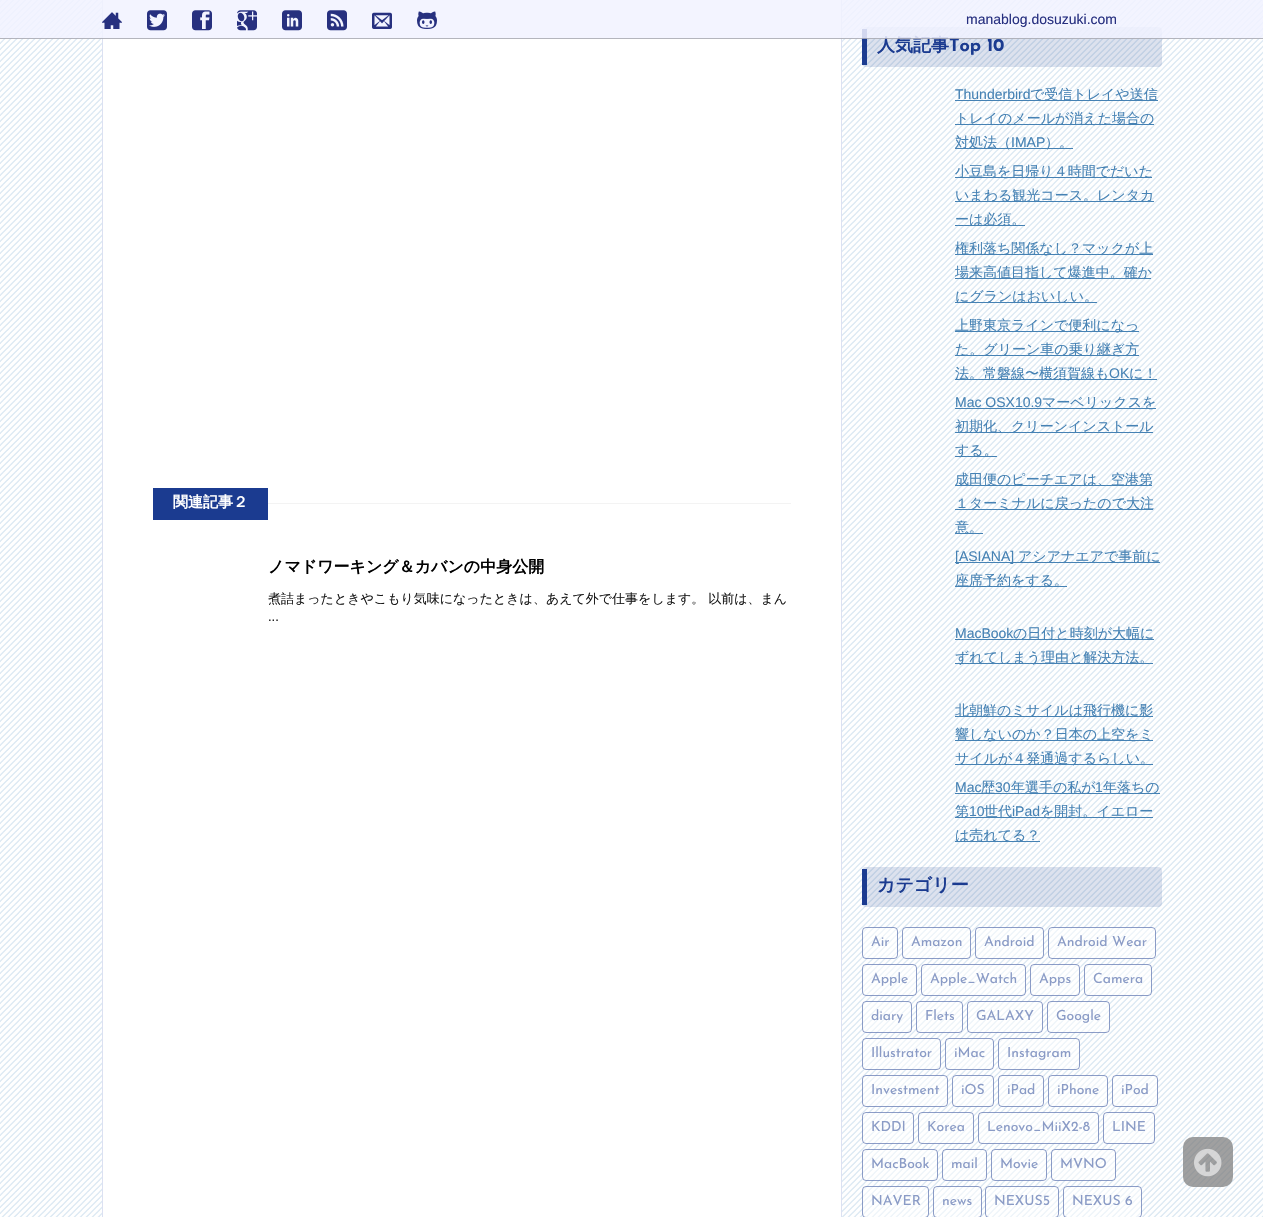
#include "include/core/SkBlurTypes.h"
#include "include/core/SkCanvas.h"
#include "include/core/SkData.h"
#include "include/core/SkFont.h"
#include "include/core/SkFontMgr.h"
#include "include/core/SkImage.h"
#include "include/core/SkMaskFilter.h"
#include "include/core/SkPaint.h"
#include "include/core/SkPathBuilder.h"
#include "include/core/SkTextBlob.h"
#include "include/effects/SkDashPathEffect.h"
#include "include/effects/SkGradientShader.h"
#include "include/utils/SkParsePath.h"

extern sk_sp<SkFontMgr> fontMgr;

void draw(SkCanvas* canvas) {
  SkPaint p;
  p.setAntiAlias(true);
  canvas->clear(SK_ColorWHITE);
  canvas->drawImageRect(SkImages::DeferredFromEncodedData(SkData::MakeFromFileName("images/1.png")), SkRect::MakeLTRB(0, 0, 1263, 1217), SkSamplingOptions());
  p.setColor(SK_ColorWHITE);
  canvas->drawRect(SkRect::MakeLTRB(102.5f, -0.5f, 841.5f, 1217.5f), p);
  p.setStyle(SkPaint::kStroke_Style);
  p.setStrokeWidth(1);
  p.setColor(SkColorSetRGB(220, 225, 242));
  canvas->drawRect(SkRect::MakeLTRB(102.5f, -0.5f, 841.5f, 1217.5f), p);
  p.setStyle(SkPaint::kFill_Style);
  p.setColor(SkColorSetRGB(243, 243, 243));
  canvas->drawRect(SkRect::MakeLTRB(268, 503, 791, 504), p);
  p.setColor(SkColorSetRGB(27, 59, 144));
  canvas->drawRect(SkRect::MakeLTRB(153, 488, 268, 520), p);
  p.setColor(SkColorSetARGB(38, 27, 59, 144));
  canvas->drawRoundRect(SkRect::MakeLTRB(862, 27, 1162, 67), 4, 4, p);
  p.setColor(SkColorSetRGB(27, 59, 144));
  canvas->drawRect(SkRect::MakeLTRB(862, 29, 867, 65), p);
  p.setColor(SkColorSetRGB(70, 130, 180));
  canvas->drawRect(SkRect::MakeLTRB(955, 100, 1158, 101), p);
  canvas->drawRect(SkRect::MakeLTRB(955, 124, 1154, 125), p);
  canvas->drawRect(SkRect::MakeLTRB(955, 148, 1073, 149), p);
  canvas->drawRect(SkRect::MakeLTRB(955, 177, 1152, 178), p);
  canvas->drawRect(SkRect::MakeLTRB(955, 201, 1154, 202), p);
  canvas->drawRect(SkRect::MakeLTRB(955, 225, 1025, 226), p);
  canvas->drawRect(SkRect::MakeLTRB(955, 254, 1153, 255), p);
  canvas->drawRect(SkRect::MakeLTRB(955, 278, 1151, 279), p);
  canvas->drawRect(SkRect::MakeLTRB(955, 302, 1097, 303), p);
  canvas->drawRect(SkRect::MakeLTRB(955, 331, 1139, 332), p);
  canvas->drawRect(SkRect::MakeLTRB(955, 355, 1139, 356), p);
  canvas->drawRect(SkRect::MakeLTRB(955, 379, 1157, 380), p);
  canvas->drawRect(SkRect::MakeLTRB(955, 408, 1156, 409), p);
  canvas->drawRect(SkRect::MakeLTRB(955, 432, 1153, 433), p);
  canvas->drawRect(SkRect::MakeLTRB(955, 456, 997, 457), p);
  canvas->drawRect(SkRect::MakeLTRB(955, 485, 1152, 486), p);
  canvas->drawRect(SkRect::MakeLTRB(955, 509, 1153, 510), p);
  canvas->drawRect(SkRect::MakeLTRB(955, 533, 983, 534), p);
  canvas->drawRect(SkRect::MakeLTRB(955, 562, 1160, 563), p);
  canvas->drawRect(SkRect::MakeLTRB(955, 586, 1067, 587), p);
  canvas->drawRect(SkRect::MakeLTRB(955, 639, 1154, 640), p);
  canvas->drawRect(SkRect::MakeLTRB(955, 663, 1153, 664), p);
  canvas->drawRect(SkRect::MakeLTRB(955, 716, 1153, 717), p);
  canvas->drawRect(SkRect::MakeLTRB(955, 740, 1153, 741), p);
  canvas->drawRect(SkRect::MakeLTRB(955, 764, 1153, 765), p);
  canvas->drawRect(SkRect::MakeLTRB(955, 793, 1160, 794), p);
  canvas->drawRect(SkRect::MakeLTRB(955, 817, 1153, 818), p);
  canvas->drawRect(SkRect::MakeLTRB(955, 841, 1040, 842), p);
  p.setColor(SkColorSetARGB(38, 27, 59, 144));
  canvas->drawRoundRect(SkRect::MakeLTRB(862, 867, 1162, 907), 4, 4, p);
  p.setColor(SkColorSetRGB(27, 59, 144));
  canvas->drawRect(SkRect::MakeLTRB(862, 869, 867, 905), p);
  p.setColor(SkColorSetARGB(128, 255, 255, 255));
  canvas->drawRoundRect(SkRect::MakeLTRB(862, 927, 898, 959), 4, 4, p);
  p.setStyle(SkPaint::kStroke_Style);
  p.setColor(SkColorSetARGB(128, 27, 59, 144));
  canvas->drawRoundRect(SkRect::MakeLTRB(862.5f, 927.5f, 897.5f, 958.5f), 3.5f, 3.5f, p);
  p.setStyle(SkPaint::kFill_Style);
  p.setColor(SkColorSetARGB(128, 255, 255, 255));
  canvas->drawRoundRect(SkRect::MakeLTRB(902, 927, 971, 959), 4, 4, p);
  p.setStyle(SkPaint::kStroke_Style);
  p.setColor(SkColorSetARGB(128, 27, 59, 144));
  canvas->drawRoundRect(SkRect::MakeLTRB(902.5f, 927.5f, 970.5f, 958.5f), 3.5f, 3.5f, p);
  p.setStyle(SkPaint::kFill_Style);
  p.setColor(SkColorSetARGB(128, 255, 255, 255));
  canvas->drawRoundRect(SkRect::MakeLTRB(975, 927, 1044, 959), 4, 4, p);
  p.setStyle(SkPaint::kStroke_Style);
  p.setColor(SkColorSetARGB(128, 27, 59, 144));
  canvas->drawRoundRect(SkRect::MakeLTRB(975.5f, 927.5f, 1043.5f, 958.5f), 3.5f, 3.5f, p);
  p.setStyle(SkPaint::kFill_Style);
  p.setColor(SkColorSetARGB(128, 255, 255, 255));
  canvas->drawRoundRect(SkRect::MakeLTRB(1048, 927, 1156, 959), 4, 4, p);
  p.setStyle(SkPaint::kStroke_Style);
  p.setColor(SkColorSetARGB(128, 27, 59, 144));
  canvas->drawRoundRect(SkRect::MakeLTRB(1048.5f, 927.5f, 1155.5f, 958.5f), 3.5f, 3.5f, p);
  p.setStyle(SkPaint::kFill_Style);
  p.setColor(SkColorSetARGB(128, 255, 255, 255));
  canvas->drawRoundRect(SkRect::MakeLTRB(862, 964, 917, 996), 4, 4, p);
  p.setStyle(SkPaint::kStroke_Style);
  p.setColor(SkColorSetARGB(128, 27, 59, 144));
  canvas->drawRoundRect(SkRect::MakeLTRB(862.5f, 964.5f, 916.5f, 995.5f), 3.5f, 3.5f, p);
  p.setStyle(SkPaint::kFill_Style);
  p.setColor(SkColorSetARGB(128, 255, 255, 255));
  canvas->drawRoundRect(SkRect::MakeLTRB(921, 964, 1026, 996), 4, 4, p);
  p.setStyle(SkPaint::kStroke_Style);
  p.setColor(SkColorSetARGB(128, 27, 59, 144));
  canvas->drawRoundRect(SkRect::MakeLTRB(921.5f, 964.5f, 1025.5f, 995.5f), 3.5f, 3.5f, p);
  p.setStyle(SkPaint::kFill_Style);
  p.setColor(SkColorSetARGB(128, 255, 255, 255));
  canvas->drawRoundRect(SkRect::MakeLTRB(1030, 964, 1080, 996), 4, 4, p);
  p.setStyle(SkPaint::kStroke_Style);
  p.setColor(SkColorSetARGB(128, 27, 59, 144));
  canvas->drawRoundRect(SkRect::MakeLTRB(1030.5f, 964.5f, 1079.5f, 995.5f), 3.5f, 3.5f, p);
  p.setStyle(SkPaint::kFill_Style);
  p.setColor(SkColorSetARGB(128, 255, 255, 255));
  canvas->drawRoundRect(SkRect::MakeLTRB(1084, 964, 1152, 996), 4, 4, p);
  p.setStyle(SkPaint::kStroke_Style);
  p.setColor(SkColorSetARGB(128, 27, 59, 144));
  canvas->drawRoundRect(SkRect::MakeLTRB(1084.5f, 964.5f, 1151.5f, 995.5f), 3.5f, 3.5f, p);
  p.setStyle(SkPaint::kFill_Style);
  p.setColor(SkColorSetARGB(128, 255, 255, 255));
  canvas->drawRoundRect(SkRect::MakeLTRB(862, 1001, 912, 1033), 4, 4, p);
  p.setStyle(SkPaint::kStroke_Style);
  p.setColor(SkColorSetARGB(128, 27, 59, 144));
  canvas->drawRoundRect(SkRect::MakeLTRB(862.5f, 1001.5f, 911.5f, 1032.5f), 3.5f, 3.5f, p);
  p.setStyle(SkPaint::kFill_Style);
  p.setColor(SkColorSetARGB(128, 255, 255, 255));
  canvas->drawRoundRect(SkRect::MakeLTRB(916, 1001, 963, 1033), 4, 4, p);
  p.setStyle(SkPaint::kStroke_Style);
  p.setColor(SkColorSetARGB(128, 27, 59, 144));
  canvas->drawRoundRect(SkRect::MakeLTRB(916.5f, 1001.5f, 962.5f, 1032.5f), 3.5f, 3.5f, p);
  p.setStyle(SkPaint::kFill_Style);
  p.setColor(SkColorSetARGB(128, 255, 255, 255));
  canvas->drawRoundRect(SkRect::MakeLTRB(967, 1001, 1043, 1033), 4, 4, p);
  p.setStyle(SkPaint::kStroke_Style);
  p.setColor(SkColorSetARGB(128, 27, 59, 144));
  canvas->drawRoundRect(SkRect::MakeLTRB(967.5f, 1001.5f, 1042.5f, 1032.5f), 3.5f, 3.5f, p);
  p.setStyle(SkPaint::kFill_Style);
  p.setColor(SkColorSetARGB(128, 255, 255, 255));
  canvas->drawRoundRect(SkRect::MakeLTRB(1047, 1001, 1110, 1033), 4, 4, p);
  p.setStyle(SkPaint::kStroke_Style);
  p.setColor(SkColorSetARGB(128, 27, 59, 144));
  canvas->drawRoundRect(SkRect::MakeLTRB(1047.5f, 1001.5f, 1109.5f, 1032.5f), 3.5f, 3.5f, p);
  p.setStyle(SkPaint::kFill_Style);
  p.setColor(SkColorSetARGB(128, 255, 255, 255));
  canvas->drawRoundRect(SkRect::MakeLTRB(862, 1038, 941, 1070), 4, 4, p);
  p.setStyle(SkPaint::kStroke_Style);
  p.setColor(SkColorSetARGB(128, 27, 59, 144));
  canvas->drawRoundRect(SkRect::MakeLTRB(862.5f, 1038.5f, 940.5f, 1069.5f), 3.5f, 3.5f, p);
  p.setStyle(SkPaint::kFill_Style);
  p.setColor(SkColorSetARGB(128, 255, 255, 255));
  canvas->drawRoundRect(SkRect::MakeLTRB(945, 1038, 994, 1070), 4, 4, p);
  p.setStyle(SkPaint::kStroke_Style);
  p.setColor(SkColorSetARGB(128, 27, 59, 144));
  canvas->drawRoundRect(SkRect::MakeLTRB(945.5f, 1038.5f, 993.5f, 1069.5f), 3.5f, 3.5f, p);
  p.setStyle(SkPaint::kFill_Style);
  p.setColor(SkColorSetARGB(128, 255, 255, 255));
  canvas->drawRoundRect(SkRect::MakeLTRB(998, 1038, 1080, 1070), 4, 4, p);
  p.setStyle(SkPaint::kStroke_Style);
  p.setColor(SkColorSetARGB(128, 27, 59, 144));
  canvas->drawRoundRect(SkRect::MakeLTRB(998.5f, 1038.5f, 1079.5f, 1069.5f), 3.5f, 3.5f, p);
  p.setStyle(SkPaint::kFill_Style);
  p.setColor(SkColorSetARGB(128, 255, 255, 255));
  canvas->drawRoundRect(SkRect::MakeLTRB(862, 1075, 948, 1107), 4, 4, p);
  p.setStyle(SkPaint::kStroke_Style);
  p.setColor(SkColorSetARGB(128, 27, 59, 144));
  canvas->drawRoundRect(SkRect::MakeLTRB(862.5f, 1075.5f, 947.5f, 1106.5f), 3.5f, 3.5f, p);
  p.setStyle(SkPaint::kFill_Style);
  p.setColor(SkColorSetARGB(128, 255, 255, 255));
  canvas->drawRoundRect(SkRect::MakeLTRB(952, 1075, 994, 1107), 4, 4, p);
  p.setStyle(SkPaint::kStroke_Style);
  p.setColor(SkColorSetARGB(128, 27, 59, 144));
  canvas->drawRoundRect(SkRect::MakeLTRB(952.5f, 1075.5f, 993.5f, 1106.5f), 3.5f, 3.5f, p);
  p.setStyle(SkPaint::kFill_Style);
  p.setColor(SkColorSetARGB(128, 255, 255, 255));
  canvas->drawRoundRect(SkRect::MakeLTRB(998, 1075, 1044, 1107), 4, 4, p);
  p.setStyle(SkPaint::kStroke_Style);
  p.setColor(SkColorSetARGB(128, 27, 59, 144));
  canvas->drawRoundRect(SkRect::MakeLTRB(998.5f, 1075.5f, 1043.5f, 1106.5f), 3.5f, 3.5f, p);
  p.setStyle(SkPaint::kFill_Style);
  p.setColor(SkColorSetARGB(128, 255, 255, 255));
  canvas->drawRoundRect(SkRect::MakeLTRB(1048, 1075, 1108, 1107), 4, 4, p);
  p.setStyle(SkPaint::kStroke_Style);
  p.setColor(SkColorSetARGB(128, 27, 59, 144));
  canvas->drawRoundRect(SkRect::MakeLTRB(1048.5f, 1075.5f, 1107.5f, 1106.5f), 3.5f, 3.5f, p);
  p.setStyle(SkPaint::kFill_Style);
  p.setColor(SkColorSetARGB(128, 255, 255, 255));
  canvas->drawRoundRect(SkRect::MakeLTRB(1112, 1075, 1158, 1107), 4, 4, p);
  p.setStyle(SkPaint::kStroke_Style);
  p.setColor(SkColorSetARGB(128, 27, 59, 144));
  canvas->drawRoundRect(SkRect::MakeLTRB(1112.5f, 1075.5f, 1157.5f, 1106.5f), 3.5f, 3.5f, p);
  p.setStyle(SkPaint::kFill_Style);
  p.setColor(SkColorSetARGB(128, 255, 255, 255));
  canvas->drawRoundRect(SkRect::MakeLTRB(862, 1112, 914, 1144), 4, 4, p);
  p.setStyle(SkPaint::kStroke_Style);
  p.setColor(SkColorSetARGB(128, 27, 59, 144));
  canvas->drawRoundRect(SkRect::MakeLTRB(862.5f, 1112.5f, 913.5f, 1143.5f), 3.5f, 3.5f, p);
  p.setStyle(SkPaint::kFill_Style);
  p.setColor(SkColorSetARGB(128, 255, 255, 255));
  canvas->drawRoundRect(SkRect::MakeLTRB(918, 1112, 974, 1144), 4, 4, p);
  p.setStyle(SkPaint::kStroke_Style);
  p.setColor(SkColorSetARGB(128, 27, 59, 144));
  canvas->drawRoundRect(SkRect::MakeLTRB(918.5f, 1112.5f, 973.5f, 1143.5f), 3.5f, 3.5f, p);
  p.setStyle(SkPaint::kFill_Style);
  p.setColor(SkColorSetARGB(128, 255, 255, 255));
  canvas->drawRoundRect(SkRect::MakeLTRB(978, 1112, 1099, 1144), 4, 4, p);
  p.setStyle(SkPaint::kStroke_Style);
  p.setColor(SkColorSetARGB(128, 27, 59, 144));
  canvas->drawRoundRect(SkRect::MakeLTRB(978.5f, 1112.5f, 1098.5f, 1143.5f), 3.5f, 3.5f, p);
  p.setStyle(SkPaint::kFill_Style);
  p.setColor(SkColorSetARGB(128, 255, 255, 255));
  canvas->drawRoundRect(SkRect::MakeLTRB(1103, 1112, 1155, 1144), 4, 4, p);
  p.setStyle(SkPaint::kStroke_Style);
  p.setColor(SkColorSetARGB(128, 27, 59, 144));
  canvas->drawRoundRect(SkRect::MakeLTRB(1103.5f, 1112.5f, 1154.5f, 1143.5f), 3.5f, 3.5f, p);
  p.setStyle(SkPaint::kFill_Style);
  p.setColor(SkColorSetARGB(128, 255, 255, 255));
  canvas->drawRoundRect(SkRect::MakeLTRB(862, 1149, 938, 1181), 4, 4, p);
  p.setStyle(SkPaint::kStroke_Style);
  p.setColor(SkColorSetARGB(128, 27, 59, 144));
  canvas->drawRoundRect(SkRect::MakeLTRB(862.5f, 1149.5f, 937.5f, 1180.5f), 3.5f, 3.5f, p);
  p.setStyle(SkPaint::kFill_Style);
  p.setColor(SkColorSetARGB(128, 255, 255, 255));
  canvas->drawRoundRect(SkRect::MakeLTRB(942, 1149, 987, 1181), 4, 4, p);
  p.setStyle(SkPaint::kStroke_Style);
  p.setColor(SkColorSetARGB(128, 27, 59, 144));
  canvas->drawRoundRect(SkRect::MakeLTRB(942.5f, 1149.5f, 986.5f, 1180.5f), 3.5f, 3.5f, p);
  p.setStyle(SkPaint::kFill_Style);
  p.setColor(SkColorSetARGB(128, 255, 255, 255));
  canvas->drawRoundRect(SkRect::MakeLTRB(991, 1149, 1047, 1181), 4, 4, p);
  p.setStyle(SkPaint::kStroke_Style);
  p.setColor(SkColorSetARGB(128, 27, 59, 144));
  canvas->drawRoundRect(SkRect::MakeLTRB(991.5f, 1149.5f, 1046.5f, 1180.5f), 3.5f, 3.5f, p);
  p.setStyle(SkPaint::kFill_Style);
  p.setColor(SkColorSetARGB(128, 255, 255, 255));
  canvas->drawRoundRect(SkRect::MakeLTRB(1051, 1149, 1116, 1181), 4, 4, p);
  p.setStyle(SkPaint::kStroke_Style);
  p.setColor(SkColorSetARGB(128, 27, 59, 144));
  canvas->drawRoundRect(SkRect::MakeLTRB(1051.5f, 1149.5f, 1115.5f, 1180.5f), 3.5f, 3.5f, p);
  p.setStyle(SkPaint::kFill_Style);
  p.setColor(SkColorSetARGB(128, 255, 255, 255));
  canvas->drawRoundRect(SkRect::MakeLTRB(862, 1186, 929, 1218), 4, 4, p);
  p.setStyle(SkPaint::kStroke_Style);
  p.setColor(SkColorSetARGB(128, 27, 59, 144));
  canvas->drawRoundRect(SkRect::MakeLTRB(862.5f, 1186.5f, 928.5f, 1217.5f), 3.5f, 3.5f, p);
  p.setStyle(SkPaint::kFill_Style);
  p.setColor(SkColorSetARGB(128, 255, 255, 255));
  canvas->drawRoundRect(SkRect::MakeLTRB(933, 1186, 982, 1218), 4, 4, p);
  p.setStyle(SkPaint::kStroke_Style);
  p.setColor(SkColorSetARGB(128, 27, 59, 144));
  canvas->drawRoundRect(SkRect::MakeLTRB(933.5f, 1186.5f, 981.5f, 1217.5f), 3.5f, 3.5f, p);
  p.setStyle(SkPaint::kFill_Style);
  p.setColor(SkColorSetARGB(128, 255, 255, 255));
  canvas->drawRoundRect(SkRect::MakeLTRB(985, 1186, 1059, 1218), 4, 4, p);
  p.setStyle(SkPaint::kStroke_Style);
  p.setColor(SkColorSetARGB(128, 27, 59, 144));
  canvas->drawRoundRect(SkRect::MakeLTRB(985.5f, 1186.5f, 1058.5f, 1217.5f), 3.5f, 3.5f, p);
  p.setStyle(SkPaint::kFill_Style);
  p.setColor(SkColorSetARGB(128, 255, 255, 255));
  canvas->drawRoundRect(SkRect::MakeLTRB(1063, 1186, 1142, 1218), 4, 4, p);
  p.setStyle(SkPaint::kStroke_Style);
  p.setColor(SkColorSetARGB(128, 27, 59, 144));
  canvas->drawRoundRect(SkRect::MakeLTRB(1063.5f, 1186.5f, 1141.5f, 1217.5f), 3.5f, 3.5f, p);
  p.setStyle(SkPaint::kFill_Style);
  p.setColor(SkColorSetARGB(179, 119, 119, 119));
  canvas->drawRoundRect(SkRect::MakeLTRB(1183, 1137, 1233, 1187), 10, 10, p);
  canvas->drawImageRect(SkImages::DeferredFromEncodedData(SkData::MakeFromFileName("images/10.png")), SkRect::MakeLTRB(1194, 1148, 1222, 1177), SkSamplingOptions());
  SkFont font1(fontMgr->matchFamilyStyle("WenQuanYi Zen Hei", SkFontStyle::Bold()), 15);
  font1.setSubpixel(true);
  p.setColor(SK_ColorWHITE);
  canvas->drawString("関連記事２", 173, 507, font1, p);
  SkFont font2(fontMgr->matchFamilyStyle("WenQuanYi Zen Hei", SkFontStyle::Bold()), 16);
  font2.setSubpixel(true);
  p.setColor(SK_ColorBLACK);
  canvas->drawString("ノマドワーキング＆カバンの中身公開", 268, 572, font2, p);
  SkFont font3(fontMgr->matchFamilyStyle("WenQuanYi Zen Hei", SkFontStyle(500, SkFontStyle::kNormal_Width, SkFontStyle::kUpright_Slant)), 13);
  font3.setSubpixel(true);
  p.setColor(SkColorSetRGB(26, 26, 26));
  canvas->drawString("煮詰まったときやこもり気味になったときは、あえて外で仕事をします。 以前は、まん", 268, 603, font3, p);
  SkFont font4(fontMgr->matchFamilyStyle("Liberation Sans", SkFontStyle::Normal()), 13);
  font4.setSubpixel(true);
  canvas->drawString("...", 268, 621, font4, p);
  SkFont font5(fontMgr->matchFamilyStyle("WenQuanYi Zen Hei", SkFontStyle::Bold()), 18);
  font5.setSubpixel(true);
  p.setColor(SkColorSetRGB(27, 59, 144));
  canvas->drawString("人気記事", 877, 51, font5, p);
  SkFont font6(fontMgr->matchFamilyStyle("Josefin Sans", SkFontStyle::Bold()), 18);
  font6.setSubpixel(true);
  canvas->drawString("Top 10", 949, 51, font6, p);
  p.setColor(SkColorSetARGB(217, 241, 242, 255));
  canvas->drawRect(SkRect::MakeLTRB(0, 0, 1263, 39), p);
  canvas->drawImageRect(SkImages::DeferredFromEncodedData(SkData::MakeFromFileName("images/9.png")), SkRect::MakeLTRB(417, 11, 437, 29), SkSamplingOptions());
  canvas->drawImageRect(SkImages::DeferredFromEncodedData(SkData::MakeFromFileName("images/8.png")), SkRect::MakeLTRB(372, 12, 392, 29), SkSamplingOptions());
  canvas->drawImageRect(SkImages::DeferredFromEncodedData(SkData::MakeFromFileName("images/7.png")), SkRect::MakeLTRB(327, 10, 347, 31), SkSamplingOptions());
  canvas->drawImageRect(SkImages::DeferredFromEncodedData(SkData::MakeFromFileName("images/6.png")), SkRect::MakeLTRB(282, 10, 302, 31), SkSamplingOptions());
  canvas->drawImageRect(SkImages::DeferredFromEncodedData(SkData::MakeFromFileName("images/5.png")), SkRect::MakeLTRB(237, 10, 257, 31), SkSamplingOptions());
  canvas->drawImageRect(SkImages::DeferredFromEncodedData(SkData::MakeFromFileName("images/4.png")), SkRect::MakeLTRB(192, 10, 212, 31), SkSamplingOptions());
  canvas->drawImageRect(SkImages::DeferredFromEncodedData(SkData::MakeFromFileName("images/3.png")), SkRect::MakeLTRB(147, 10, 167, 31), SkSamplingOptions());
  canvas->drawImageRect(SkImages::DeferredFromEncodedData(SkData::MakeFromFileName("images/2.png")), SkRect::MakeLTRB(102, 12, 122, 29), SkSamplingOptions());
  SkFont font7(fontMgr->matchFamilyStyle("Liberation Sans", SkFontStyle::Normal()), 14);
  font7.setSubpixel(true);
  p.setColor(SkColorSetRGB(38, 47, 127));
  canvas->drawString("manablog.dosuzuki.com", 966, 24, font7, p);
  p.setColor(SkColorSetARGB(66, 0, 0, 0));
  canvas->drawRect(SkRect::MakeLTRB(0, 38, 1263, 39), p);
  p.setColor(SkColorSetRGB(70, 130, 180));
  canvas->drawString("Thunderbird", 955, 99, font7, p);
  SkFont font8(fontMgr->matchFamilyStyle("WenQuanYi Zen Hei", SkFontStyle(500, SkFontStyle::kNormal_Width, SkFontStyle::kUpright_Slant)), 14);
  font8.setSubpixel(true);
  canvas->drawString("で受信トレイや送信", 1030, 99, font8, p);
  canvas->drawString("トレイのメールが消えた場合の", 955, 123, font8, p);
  canvas->drawString("対処法（", 955, 147, font8, p);
  canvas->drawString("IMAP", 1011, 147, font7, p);
  canvas->drawString("）。", 1045, 147, font8, p);
  canvas->drawString("小豆島を日帰り４時間でだいた", 955, 176, font8, p);
  canvas->drawString("いまわる観光コース。レンタカ", 955, 200, font8, p);
  canvas->drawString("ーは必須。", 955, 224, font8, p);
  canvas->drawString("権利落ち関係なし？マックが上", 955, 253, font8, p);
  canvas->drawString("場来高値目指して爆進中。確か", 955, 277, font8, p);
  canvas->drawString("にグランはおいしい。", 955, 301, font8, p);
  canvas->drawString("上野東京ラインで便利になっ", 955, 330, font8, p);
  canvas->drawString("た。グリーン車の乗り継ぎ方", 955, 354, font8, p);
  canvas->drawString("法。常磐線〜横須賀線も", 955, 378, font8, p);
  canvas->drawString("OK", 1109, 378, font7, p);
  canvas->drawString("に！", 1129, 378, font8, p);
  canvas->drawString("Mac OSX10.9", 955, 407, font7, p);
  canvas->drawString("マーベリックスを", 1042, 407, font8, p);
  canvas->drawString("初期化、クリーンインストール", 955, 431, font8, p);
  canvas->drawString("する。", 955, 455, font8, p);
  canvas->drawString("成田便のピーチエアは、空港第", 955, 484, font8, p);
  canvas->drawString("１ターミナルに戻ったので大注", 955, 508, font8, p);
  canvas->drawString("意。", 955, 532, font8, p);
  canvas->drawString("[ASIANA]", 955, 561, font7, p);
  canvas->drawString("アシアナエアで事前に", 1018, 561, font8, p);
  canvas->drawString("座席予約をする。", 955, 585, font8, p);
  canvas->drawString("MacBook", 955, 638, font7, p);
  canvas->drawString("の日付と時刻が大幅に", 1013, 638, font8, p);
  canvas->drawString("ずれてしまう理由と解決方法。", 955, 662, font8, p);
  canvas->drawString("北朝鮮のミサイルは飛行機に影", 955, 715, font8, p);
  canvas->drawString("響しないのか？日本の上空をミ", 955, 739, font8, p);
  canvas->drawString("サイルが４発通過するらしい。", 955, 763, font8, p);
  canvas->drawString("Mac", 955, 792, font7, p);
  canvas->drawString("歴", 981, 792, font8, p);
  canvas->drawString("30", 995, 792, font7, p);
  canvas->drawString("年選手の私が", 1011, 792, font8, p);
  canvas->drawString("1", 1095, 792, font7, p);
  canvas->drawString("年落ちの", 1103, 792, font8, p);
  canvas->drawString("第", 955, 816, font8, p);
  canvas->drawString("10", 969, 816, font7, p);
  canvas->drawString("世代", 984, 816, font8, p);
  canvas->drawString("iPad", 1012, 816, font7, p);
  canvas->drawString("を開封。イエロー", 1040, 816, font8, p);
  canvas->drawString("は売れてる？", 955, 840, font8, p);
  p.setColor(SkColorSetRGB(27, 59, 144));
  canvas->drawString("カテゴリー", 877, 891, font5, p);
  SkFont font9(fontMgr->matchFamilyStyle("Josefin Sans", SkFontStyle::Normal()), 14);
  font9.setSubpixel(true);
  p.setColor(SkColorSetRGB(138, 155, 198));
  canvas->drawString("Air", 871, 946, font9, p);
  canvas->drawString("Amazon", 911, 946, font9, p);
  canvas->drawString("Android", 984, 946, font9, p);
  canvas->drawString("Android Wear", 1057, 946, font9, p);
  canvas->drawString("Apple", 871, 983, font9, p);
  canvas->drawString("Apple_Watch", 930, 983, font9, p);
  canvas->drawString("Apps", 1039, 983, font9, p);
  canvas->drawString("Camera", 1093, 983, font9, p);
  canvas->drawString("diary", 871, 1020, font9, p);
  canvas->drawString("Flets", 925, 1020, font9, p);
  canvas->drawString("GALAXY", 976, 1020, font9, p);
  canvas->drawString("Google", 1056, 1020, font9, p);
  canvas->drawString("Illustrator", 871, 1057, font9, p);
  canvas->drawString("iMac", 954, 1057, font9, p);
  canvas->drawString("Instagram", 1007, 1057, font9, p);
  canvas->drawString("Investment", 871, 1094, font9, p);
  canvas->drawString("iOS", 961, 1094, font9, p);
  canvas->drawString("iPad", 1007, 1094, font9, p);
  canvas->drawString("iPhone", 1057, 1094, font9, p);
  canvas->drawString("iPod", 1121, 1094, font9, p);
  canvas->drawString("KDDI", 871, 1131, font9, p);
  canvas->drawString("Korea", 927, 1131, font9, p);
  canvas->drawString("Lenovo_MiiX2-8", 987, 1131, font9, p);
  canvas->drawString("LINE", 1112, 1131, font9, p);
  canvas->drawString("MacBook", 871, 1168, font9, p);
  canvas->drawString("mail", 951, 1168, font9, p);
  canvas->drawString("Movie", 1000, 1168, font9, p);
  canvas->drawString("MVNO", 1060, 1168, font9, p);
  canvas->drawString("NAVER", 871, 1205, font9, p);
  canvas->drawString("news", 942, 1205, font9, p);
  canvas->drawString("NEXUS5", 994, 1205, font9, p);
  canvas->drawString("NEXUS 6", 1072, 1205, font9, p);
}
